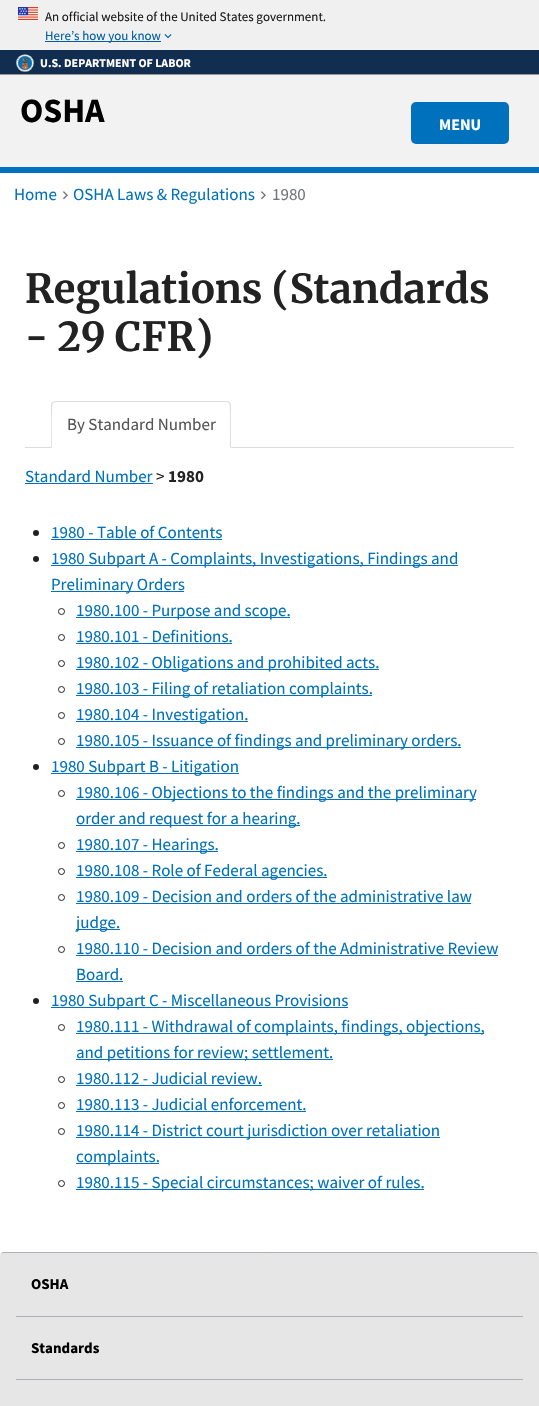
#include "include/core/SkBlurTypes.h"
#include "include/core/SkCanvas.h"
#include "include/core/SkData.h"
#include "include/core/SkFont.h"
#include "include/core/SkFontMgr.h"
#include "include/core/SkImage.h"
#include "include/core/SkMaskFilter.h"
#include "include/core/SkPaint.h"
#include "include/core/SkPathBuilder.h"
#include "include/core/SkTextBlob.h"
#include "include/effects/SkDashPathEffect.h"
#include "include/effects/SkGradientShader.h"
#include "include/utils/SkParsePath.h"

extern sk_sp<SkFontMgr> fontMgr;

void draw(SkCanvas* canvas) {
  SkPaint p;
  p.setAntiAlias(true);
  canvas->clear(SK_ColorWHITE);
  p.setColor(SkColorSetRGB(240, 240, 240));
  canvas->drawRect(SkRect::MakeLTRB(0, 0, 539, 50), p);
  canvas->drawImageRect(SkImages::DeferredFromEncodedData(SkData::MakeFromFileName("images/1.png")), SkRect::MakeLTRB(18, 7, 38, 20), SkSamplingOptions());
  p.setColor(SkColorSetRGB(0, 94, 162));
  canvas->drawRect(SkRect::MakeLTRB(45, 41, 161, 42), p);
  canvas->drawImageRect(SkImages::DeferredFromEncodedData(SkData::MakeFromFileName("images/2.png")), SkRect::MakeLTRB(164, 34, 172, 39), SkSamplingOptions());
  p.setColor(SkColorSetRGB(17, 46, 81));
  canvas->drawRect(SkRect::MakeLTRB(0, 50, 539, 74), p);
  p.setColor(SkColorSetRGB(151, 151, 151));
  canvas->drawRect(SkRect::MakeLTRB(0, 74, 539, 75), p);
  canvas->drawImageRect(SkImages::DeferredFromEncodedData(SkData::MakeFromFileName("images/3.png")), SkRect::MakeLTRB(16, 54, 34, 72), SkSamplingOptions());
  p.setColor(SkColorSetRGB(242, 242, 242));
  canvas->drawRect(SkRect::MakeLTRB(0, 75, 539, 167), p);
  p.setColor(SkColorSetRGB(0, 113, 188));
  canvas->drawRoundRect(SkRect::MakeLTRB(411, 102, 509, 144), 5, 5, p);
  canvas->drawRect(SkRect::MakeLTRB(0, 167, 539, 173), p);
  canvas->drawImageRect(SkImages::DeferredFromEncodedData(SkData::MakeFromFileName("images/4.png")), SkRect::MakeLTRB(63, 191, 68, 200), SkSamplingOptions());
  canvas->drawImageRect(SkImages::DeferredFromEncodedData(SkData::MakeFromFileName("images/4.png")), SkRect::MakeLTRB(261, 191, 266, 200), SkSamplingOptions());
  p.setColor(SkColorSetRGB(221, 221, 221));
  canvas->drawRect(SkRect::MakeLTRB(25, 447, 514, 448), p);
  p.setColor(SK_ColorWHITE);
  canvas->drawPath(SkPathBuilder().moveTo(55, 401).lineTo(227, 401).cubicTo(229, 401, 231, 403, 231, 405).lineTo(231, 448).lineTo(51, 448).lineTo(51, 405).cubicTo(51, 403, 53, 401, 55, 401).close().detach(), p);
  p.setColor(SkColorSetRGB(221, 221, 221));
  canvas->drawPath(SkPathBuilder().moveTo(55, 401).lineTo(52, 402).lineTo(53, 403).lineTo(55, 402).lineTo(227, 402).lineTo(229, 403).lineTo(230, 402).lineTo(227, 401).close().detach(), p);
  canvas->drawPath(SkPathBuilder().moveTo(231, 448).lineTo(231, 405).cubicTo(231, 404, 230, 403, 230, 402).lineTo(229, 403).cubicTo(231, 405, 230, 442, 230, 447).close().detach(), p);
  canvas->drawPath(SkPathBuilder().moveTo(51, 448).lineTo(52, 447).cubicTo(52, 442, 51, 405, 53, 403).lineTo(52, 402).lineTo(51, 405).close().detach(), p);
  p.setColor(SkColorSetRGB(0, 113, 188));
  canvas->drawRect(SkRect::MakeLTRB(25, 483, 153, 484), p);
  p.setColor(SkColorSetRGB(33, 33, 33));
  canvas->drawCircle(36, 533, 3, p);
  p.setColor(SkColorSetRGB(0, 113, 188));
  canvas->drawRect(SkRect::MakeLTRB(51, 539, 222, 540), p);
  p.setColor(SkColorSetRGB(33, 33, 33));
  canvas->drawCircle(36, 559, 3, p);
  p.setColor(SkColorSetRGB(0, 113, 188));
  canvas->drawRect(SkRect::MakeLTRB(51, 565, 458, 566), p);
  canvas->drawRect(SkRect::MakeLTRB(51, 591, 184, 592), p);
  p.setStyle(SkPaint::kStroke_Style);
  p.setStrokeWidth(1);
  p.setColor(SkColorSetRGB(33, 33, 33));
  canvas->drawCircle(61.5f, 611.5f, 3, p);
  p.setStyle(SkPaint::kFill_Style);
  p.setColor(SkColorSetRGB(0, 113, 188));
  canvas->drawRect(SkRect::MakeLTRB(76, 617, 290, 618), p);
  p.setStyle(SkPaint::kStroke_Style);
  p.setColor(SkColorSetRGB(33, 33, 33));
  canvas->drawCircle(61.5f, 637.5f, 3, p);
  p.setStyle(SkPaint::kFill_Style);
  p.setColor(SkColorSetRGB(0, 113, 188));
  canvas->drawRect(SkRect::MakeLTRB(76, 643, 232, 644), p);
  p.setStyle(SkPaint::kStroke_Style);
  p.setColor(SkColorSetRGB(33, 33, 33));
  canvas->drawCircle(61.5f, 663.5f, 3, p);
  p.setStyle(SkPaint::kFill_Style);
  p.setColor(SkColorSetRGB(0, 113, 188));
  canvas->drawRect(SkRect::MakeLTRB(76, 669, 379, 670), p);
  p.setStyle(SkPaint::kStroke_Style);
  p.setColor(SkColorSetRGB(33, 33, 33));
  canvas->drawCircle(61.5f, 689.5f, 3, p);
  p.setStyle(SkPaint::kFill_Style);
  p.setColor(SkColorSetRGB(0, 113, 188));
  canvas->drawRect(SkRect::MakeLTRB(76, 695, 372, 696), p);
  p.setStyle(SkPaint::kStroke_Style);
  p.setColor(SkColorSetRGB(33, 33, 33));
  canvas->drawCircle(61.5f, 715.5f, 3, p);
  p.setStyle(SkPaint::kFill_Style);
  p.setColor(SkColorSetRGB(0, 113, 188));
  canvas->drawRect(SkRect::MakeLTRB(76, 721, 248, 722), p);
  p.setStyle(SkPaint::kStroke_Style);
  p.setColor(SkColorSetRGB(33, 33, 33));
  canvas->drawCircle(61.5f, 741.5f, 3, p);
  p.setStyle(SkPaint::kFill_Style);
  p.setColor(SkColorSetRGB(0, 113, 188));
  canvas->drawRect(SkRect::MakeLTRB(76, 747, 461, 748), p);
  p.setColor(SkColorSetRGB(33, 33, 33));
  canvas->drawCircle(36, 767, 3, p);
  p.setColor(SkColorSetRGB(0, 113, 188));
  canvas->drawRect(SkRect::MakeLTRB(51, 773, 239, 774), p);
  p.setStyle(SkPaint::kStroke_Style);
  p.setColor(SkColorSetRGB(33, 33, 33));
  canvas->drawCircle(61.5f, 793.5f, 3, p);
  p.setStyle(SkPaint::kFill_Style);
  p.setColor(SkColorSetRGB(0, 113, 188));
  canvas->drawRect(SkRect::MakeLTRB(76, 799, 476, 800), p);
  canvas->drawRect(SkRect::MakeLTRB(76, 825, 300, 826), p);
  p.setStyle(SkPaint::kStroke_Style);
  p.setColor(SkColorSetRGB(33, 33, 33));
  canvas->drawCircle(61.5f, 845.5f, 3, p);
  p.setStyle(SkPaint::kFill_Style);
  p.setColor(SkColorSetRGB(0, 113, 188));
  canvas->drawRect(SkRect::MakeLTRB(76, 851, 218, 852), p);
  p.setStyle(SkPaint::kStroke_Style);
  p.setColor(SkColorSetRGB(33, 33, 33));
  canvas->drawCircle(61.5f, 871.5f, 3, p);
  p.setStyle(SkPaint::kFill_Style);
  p.setColor(SkColorSetRGB(0, 113, 188));
  canvas->drawRect(SkRect::MakeLTRB(76, 877, 327, 878), p);
  p.setStyle(SkPaint::kStroke_Style);
  p.setColor(SkColorSetRGB(33, 33, 33));
  canvas->drawCircle(61.5f, 897.5f, 3, p);
  p.setStyle(SkPaint::kFill_Style);
  p.setColor(SkColorSetRGB(0, 113, 188));
  canvas->drawRect(SkRect::MakeLTRB(76, 903, 471, 904), p);
  canvas->drawRect(SkRect::MakeLTRB(76, 929, 120, 930), p);
  p.setStyle(SkPaint::kStroke_Style);
  p.setColor(SkColorSetRGB(33, 33, 33));
  canvas->drawCircle(61.5f, 949.5f, 3, p);
  p.setStyle(SkPaint::kFill_Style);
  p.setColor(SkColorSetRGB(0, 113, 188));
  canvas->drawRect(SkRect::MakeLTRB(76, 955, 498, 956), p);
  canvas->drawRect(SkRect::MakeLTRB(76, 981, 123, 982), p);
  p.setColor(SkColorSetRGB(33, 33, 33));
  canvas->drawCircle(36, 1001, 3, p);
  p.setColor(SkColorSetRGB(0, 113, 188));
  canvas->drawRect(SkRect::MakeLTRB(51, 1007, 348, 1008), p);
  p.setStyle(SkPaint::kStroke_Style);
  p.setColor(SkColorSetRGB(33, 33, 33));
  canvas->drawCircle(61.5f, 1027.5f, 3, p);
  p.setStyle(SkPaint::kFill_Style);
  p.setColor(SkColorSetRGB(0, 113, 188));
  canvas->drawRect(SkRect::MakeLTRB(76, 1033, 484, 1034), p);
  canvas->drawRect(SkRect::MakeLTRB(76, 1059, 333, 1060), p);
  p.setStyle(SkPaint::kStroke_Style);
  p.setColor(SkColorSetRGB(33, 33, 33));
  canvas->drawCircle(61.5f, 1079.5f, 3, p);
  p.setStyle(SkPaint::kFill_Style);
  p.setColor(SkColorSetRGB(0, 113, 188));
  canvas->drawRect(SkRect::MakeLTRB(76, 1085, 262, 1086), p);
  p.setStyle(SkPaint::kStroke_Style);
  p.setColor(SkColorSetRGB(33, 33, 33));
  canvas->drawCircle(61.5f, 1105.5f, 3, p);
  p.setStyle(SkPaint::kFill_Style);
  p.setColor(SkColorSetRGB(0, 113, 188));
  canvas->drawRect(SkRect::MakeLTRB(76, 1111, 306, 1112), p);
  p.setStyle(SkPaint::kStroke_Style);
  p.setColor(SkColorSetRGB(33, 33, 33));
  canvas->drawCircle(61.5f, 1131.5f, 3, p);
  p.setStyle(SkPaint::kFill_Style);
  p.setColor(SkColorSetRGB(0, 113, 188));
  canvas->drawRect(SkRect::MakeLTRB(76, 1137, 440, 1138), p);
  canvas->drawRect(SkRect::MakeLTRB(76, 1163, 159, 1164), p);
  p.setStyle(SkPaint::kStroke_Style);
  p.setColor(SkColorSetRGB(33, 33, 33));
  canvas->drawCircle(61.5f, 1183.5f, 3, p);
  p.setStyle(SkPaint::kFill_Style);
  p.setColor(SkColorSetRGB(0, 113, 188));
  canvas->drawRect(SkRect::MakeLTRB(76, 1189, 424, 1190), p);
  p.setColor(SkColorSetRGB(230, 230, 230));
  canvas->drawRoundRect(SkRect::MakeLTRB(0, 1252, 539, 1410), 4, 4, p);
  p.setStyle(SkPaint::kStroke_Style);
  p.setColor(SkColorSetRGB(174, 176, 181));
  canvas->drawPath(SkPathBuilder().moveTo(1.5f, 1253.5f).cubicTo(2, 1253, 3, 1252.5f, 4, 1252.5f).lineTo(535, 1252.5f).cubicTo(536, 1252.5f, 537, 1253, 537.5f, 1253.5f).detach(), p);
  p.setStyle(SkPaint::kFill_Style);
  canvas->drawRect(SkRect::MakeLTRB(16, 1316, 523, 1317), p);
  canvas->drawRect(SkRect::MakeLTRB(16, 1379, 523, 1380), p);
  SkFont font1(fontMgr->matchFamilyStyle("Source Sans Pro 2", SkFontStyle::Normal()), 13);
  font1.setSubpixel(true);
  p.setColor(SkColorSetRGB(27, 27, 27));
  canvas->drawString("An official website of the United States government.", 45, 21, font1, p);
  p.setColor(SkColorSetRGB(0, 94, 162));
  canvas->drawString("Here’s how you know", 45, 40, font1, p);
  SkFont font2(fontMgr->matchFamilyStyle("Source Sans Pro", SkFontStyle::Bold()), 11.9f);
  font2.setSubpixel(true);
  p.setColor(SK_ColorWHITE);
  canvas->drawString("U.S. DEPARTMENT OF LABOR", 40, 67, font2, p);
  SkFont font3(fontMgr->matchFamilyStyle("Source Sans Pro 2", SkFontStyle::Bold()), 34);
  font3.setSubpixel(true);
  p.setColor(SK_ColorBLACK);
  canvas->drawString("OSHA", 20, 122, font3, p);
  SkFont font4(fontMgr->matchFamilyStyle("Source Sans Pro", SkFontStyle::Bold()), 16);
  font4.setSubpixel(true);
  p.setColor(SK_ColorWHITE);
  canvas->drawString("MENU", 439, 130, font4, p);
  SkFont font5(fontMgr->matchFamilyStyle("Source Sans Pro", SkFontStyle::Normal()), 17);
  font5.setSubpixel(true);
  p.setColor(SkColorSetRGB(0, 113, 188));
  canvas->drawString("Home", 14, 200, font5, p);
  canvas->drawString("OSHA Laws & Regulations", 73, 200, font5, p);
  p.setColor(SkColorSetRGB(113, 118, 122));
  canvas->drawString("1980", 272, 200, font5, p);
  SkFont font6(fontMgr->matchFamilyStyle("Merriweather", SkFontStyle::Bold()), 39.9f);
  font6.setSubpixel(true);
  p.setColor(SkColorSetRGB(34, 34, 34));
  canvas->drawString("Regulations (Standards", 25, 303, font6, p);
  canvas->drawString("- 29 CFR)", 25, 351, font6, p);
  p.setColor(SkColorSetRGB(85, 85, 85));
  canvas->drawString("By Standard Number", 67, 430, font5, p);
  p.setColor(SkColorSetRGB(0, 113, 188));
  canvas->drawString("Standard Number", 25, 482, font5, p);
  p.setColor(SkColorSetRGB(34, 34, 34));
  canvas->drawString(">", 156, 482, font5, p);
  SkFont font7(fontMgr->matchFamilyStyle("Source Sans Pro", SkFontStyle::Bold()), 17);
  font7.setSubpixel(true);
  canvas->drawString("1980", 168, 482, font7, p);
  p.setColor(SkColorSetRGB(0, 113, 188));
  canvas->drawString("1980 - Table of Contents", 51, 538, font5, p);
  canvas->drawString("1980 Subpart A - Complaints, Investigations, Findings and", 51, 564, font5, p);
  canvas->drawString("Preliminary Orders", 51, 590, font5, p);
  canvas->drawString("1980.100 - Purpose and scope.", 76, 616, font5, p);
  canvas->drawString("1980.101 - Definitions.", 76, 642, font5, p);
  canvas->drawString("1980.102 - Obligations and prohibited acts.", 76, 668, font5, p);
  canvas->drawString("1980.103 - Filing of retaliation complaints.", 76, 694, font5, p);
  canvas->drawString("1980.104 - Investigation.", 76, 720, font5, p);
  canvas->drawString("1980.105 - Issuance of findings and preliminary orders.", 76, 746, font5, p);
  canvas->drawString("1980 Subpart B - Litigation", 51, 772, font5, p);
  canvas->drawString("1980.106 - Objections to the findings and the preliminary", 76, 798, font5, p);
  canvas->drawString("order and request for a hearing.", 76, 824, font5, p);
  canvas->drawString("1980.107 - Hearings.", 76, 850, font5, p);
  canvas->drawString("1980.108 - Role of Federal agencies.", 76, 876, font5, p);
  canvas->drawString("1980.109 - Decision and orders of the administrative law", 76, 902, font5, p);
  canvas->drawString("judge.", 76, 928, font5, p);
  canvas->drawString("1980.110 - Decision and orders of the Administrative Review", 76, 954, font5, p);
  canvas->drawString("Board.", 76, 980, font5, p);
  canvas->drawString("1980 Subpart C - Miscellaneous Provisions", 51, 1006, font5, p);
  canvas->drawString("1980.111 - Withdrawal of complaints, findings, objections,", 76, 1032, font5, p);
  canvas->drawString("and petitions for review; settlement.", 76, 1058, font5, p);
  canvas->drawString("1980.112 - Judicial review.", 76, 1084, font5, p);
  canvas->drawString("1980.113 - Judicial enforcement.", 76, 1110, font5, p);
  canvas->drawString("1980.114 - District court jurisdiction over retaliation", 76, 1136, font5, p);
  canvas->drawString("complaints.", 76, 1162, font5, p);
  canvas->drawString("1980.115 - Special circumstances; waiver of rules.", 76, 1188, font5, p);
  SkFont font8(fontMgr->matchFamilyStyle("Source Sans Pro 2", SkFontStyle::Bold()), 15);
  font8.setSubpixel(true);
  p.setColor(SK_ColorBLACK);
  canvas->drawString("OSHA", 31, 1289, font8, p);
  canvas->drawString("Standards", 31, 1353, font8, p);
}
